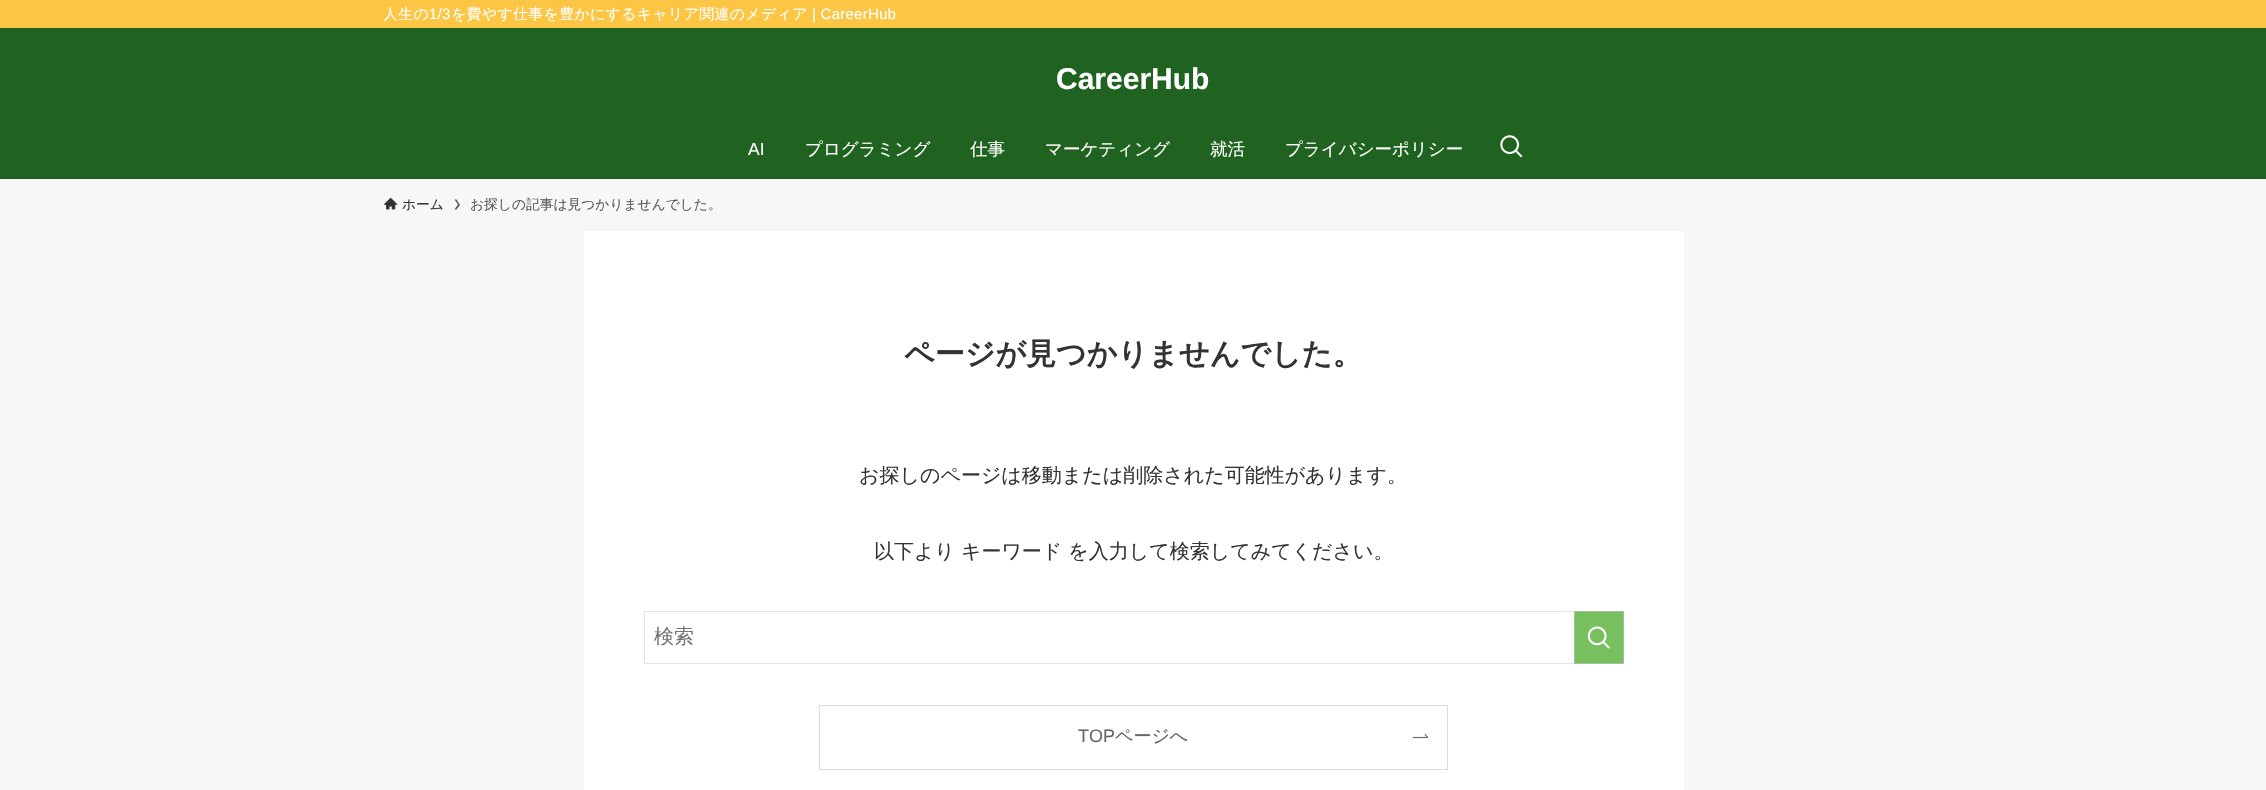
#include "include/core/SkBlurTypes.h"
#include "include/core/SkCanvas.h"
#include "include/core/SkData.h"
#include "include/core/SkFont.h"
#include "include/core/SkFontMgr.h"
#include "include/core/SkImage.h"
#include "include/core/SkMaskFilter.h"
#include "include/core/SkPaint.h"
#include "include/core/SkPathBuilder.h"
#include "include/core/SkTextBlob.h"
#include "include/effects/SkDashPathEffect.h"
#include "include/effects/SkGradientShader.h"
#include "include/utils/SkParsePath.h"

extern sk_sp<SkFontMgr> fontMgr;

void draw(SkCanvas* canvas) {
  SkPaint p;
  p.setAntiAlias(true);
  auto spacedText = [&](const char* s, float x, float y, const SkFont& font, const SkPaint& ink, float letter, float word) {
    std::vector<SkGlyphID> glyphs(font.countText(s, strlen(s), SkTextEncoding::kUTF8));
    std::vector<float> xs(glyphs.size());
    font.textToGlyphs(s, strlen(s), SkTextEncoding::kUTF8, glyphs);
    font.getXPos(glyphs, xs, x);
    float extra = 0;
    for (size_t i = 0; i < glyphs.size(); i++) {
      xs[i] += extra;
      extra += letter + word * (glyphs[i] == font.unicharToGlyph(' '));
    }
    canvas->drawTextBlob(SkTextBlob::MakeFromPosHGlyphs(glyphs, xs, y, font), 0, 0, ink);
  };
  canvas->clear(SkColorSetRGB(247, 247, 247));
  p.setColor(SkColorSetRGB(32, 99, 33));
  canvas->drawRect(SkRect::MakeLTRB(0, 28, 2266, 178), p);
  p.setColor(SkColorSetRGB(29, 89, 30));
  canvas->drawRect(SkRect::MakeLTRB(0, 178, 2266, 179), p);
  p.setColor(SkColorSetRGB(252, 197, 68));
  canvas->drawRect(SkRect::MakeLTRB(0, 0, 2266, 28), p);
  canvas->drawImageRect(SkImages::DeferredFromEncodedData(SkData::MakeFromFileName("images/1.png")), SkRect::MakeLTRB(1500, 135, 1523, 158), SkSamplingOptions());
  canvas->drawImageRect(SkImages::DeferredFromEncodedData(SkData::MakeFromFileName("images/2.png")), SkRect::MakeLTRB(383, 197, 398, 210), SkSamplingOptions());
  p.setColor(SkColorSetRGB(90, 90, 90));
  canvas->drawPath(SkPathBuilder().moveTo(456.5f, 199.5f).lineTo(454.5f, 199.5f).lineTo(458, 204.5f).lineTo(454.5f, 209.5f).lineTo(456.5f, 209.5f).lineTo(460, 205).close().detach(), p);
  p.setColor(SK_ColorWHITE);
  canvas->drawRect(SkRect::MakeLTRB(584, 231, 1684, 790), p);
  p.setStyle(SkPaint::kStroke_Style);
  p.setStrokeWidth(1);
  p.setColor(SkColorSetRGB(227, 227, 227));
  canvas->drawRect(SkRect::MakeLTRB(644.5f, 611.5f, 1623.5f, 663.5f), p);
  p.setStyle(SkPaint::kFill_Style);
  p.setColor(SkColorSetRGB(119, 191, 95));
  canvas->drawRect(SkRect::MakeLTRB(1574.5f, 611.5f, 1623.5f, 663.5f), p);
  p.setStyle(SkPaint::kStroke_Style);
  p.setColor(SkColorSetRGB(159, 195, 147));
  canvas->drawRect(SkRect::MakeLTRB(1574.5f, 611.5f, 1623.5f, 663.5f), p);
  canvas->drawImageRect(SkImages::DeferredFromEncodedData(SkData::MakeFromFileName("images/3.png")), SkRect::MakeLTRB(1587, 626, 1610, 649), SkSamplingOptions());
  p.setColor(SkColorSetRGB(220, 220, 220));
  canvas->drawRect(SkRect::MakeLTRB(819.5f, 705.5f, 1447.5f, 769.5f), p);
  canvas->drawImageRect(SkImages::DeferredFromEncodedData(SkData::MakeFromFileName("images/4.png")), SkRect::MakeLTRB(1412, 733, 1429, 739), SkSamplingOptions());
  SkFont font1(fontMgr->matchFamilyStyle("WenQuanYi Zen Hei", SkFontStyle(500, SkFontStyle::kNormal_Width, SkFontStyle::kUpright_Slant)), 15);
  font1.setSubpixel(true);
  p.setStyle(SkPaint::kFill_Style);
  p.setColor(SK_ColorWHITE);
  spacedText("人生の", 383, 19, font1, p, 0.25f, 0);
  SkFont font2(fontMgr->matchFamilyStyle("Liberation Sans", SkFontStyle::Normal()), 15);
  font2.setSubpixel(true);
  spacedText("1/3", 429, 19, font2, p, 0.25f, 0);
  spacedText("を費やす仕事を豊かにするキャリア関連のメディア", 451, 19, font1, p, 0.25f, 0);
  spacedText("| CareerHub", 812, 19, font2, p, 0.25f, 0);
  SkFont font3(fontMgr->matchFamilyStyle("Liberation Sans", SkFontStyle::Bold()), 30);
  font3.setSubpixel(true);
  canvas->drawString("CareerHub", 1056, 89, font3, p);
  SkFont font4(fontMgr->matchFamilyStyle("Liberation Sans", SkFontStyle::Normal()), 17.5f);
  font4.setSubpixel(true);
  canvas->drawString("AI", 748, 155, font4, p);
  SkFont font5(fontMgr->matchFamilyStyle("WenQuanYi Zen Hei", SkFontStyle(500, SkFontStyle::kNormal_Width, SkFontStyle::kUpright_Slant)), 17.5f);
  font5.setSubpixel(true);
  canvas->drawString("プログラミング", 805, 155, font5, p);
  canvas->drawString("仕事", 970, 155, font5, p);
  canvas->drawString("マーケティング", 1045, 155, font5, p);
  canvas->drawString("就活", 1210, 155, font5, p);
  canvas->drawString("プライバシーポリシー", 1285, 155, font5, p);
  SkFont font6(fontMgr->matchFamilyStyle("WenQuanYi Zen Hei", SkFontStyle(500, SkFontStyle::kNormal_Width, SkFontStyle::kUpright_Slant)), 13.75f);
  font6.setSubpixel(true);
  p.setColor(SkColorSetRGB(51, 51, 51));
  canvas->drawString("ホーム", 402, 209, font6, p);
  p.setColor(SkColorSetRGB(90, 90, 90));
  canvas->drawString("お探しの記事は見つかりませんでした。", 470, 209, font6, p);
  SkFont font7(fontMgr->matchFamilyStyle("WenQuanYi Zen Hei", SkFontStyle::Bold()), 30);
  font7.setSubpixel(true);
  p.setColor(SkColorSetRGB(51, 51, 51));
  canvas->drawString("ページが見つかりませんでした。", 904, 364, font7, p);
  SkFont font8(fontMgr->matchFamilyStyle("WenQuanYi Zen Hei", SkFontStyle(500, SkFontStyle::kNormal_Width, SkFontStyle::kUpright_Slant)), 20);
  font8.setSubpixel(true);
  canvas->drawString("お探しのページは移動または削除された可能性があります。", 859, 482, font8, p);
  canvas->drawString("以下より キーワード を入力して検索してみてください。", 874, 558, font8, p);
  p.setColor(SkColorSetRGB(117, 117, 117));
  canvas->drawString("検索", 654, 643, font8, p);
  SkFont font9(fontMgr->matchFamilyStyle("Liberation Sans", SkFontStyle::Normal()), 18);
  font9.setSubpixel(true);
  p.setColor(SkColorSetRGB(102, 102, 102));
  canvas->drawString("TOP", 1078, 742, font9, p);
  SkFont font10(fontMgr->matchFamilyStyle("WenQuanYi Zen Hei", SkFontStyle(500, SkFontStyle::kNormal_Width, SkFontStyle::kUpright_Slant)), 18);
  font10.setSubpixel(true);
  canvas->drawString("ページへ", 1115, 742, font10, p);
}
